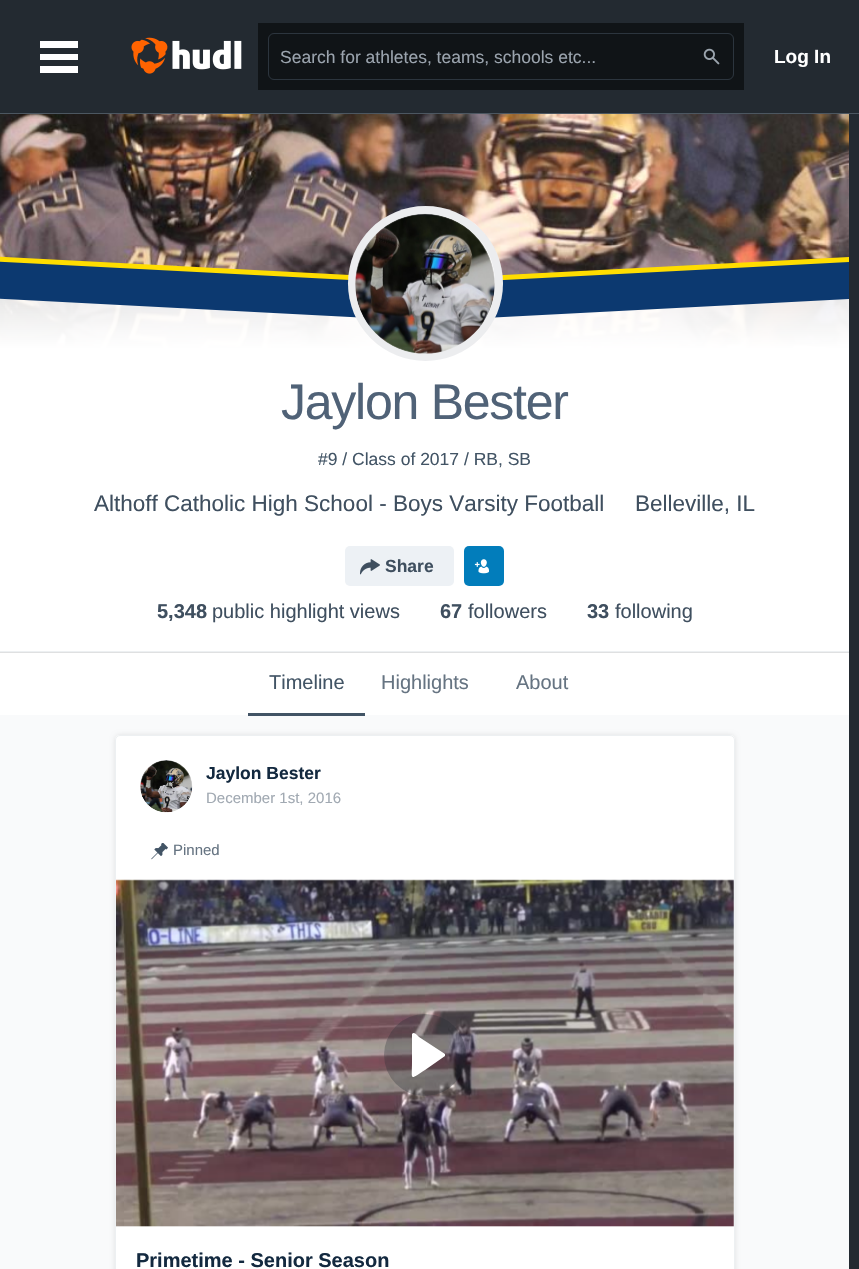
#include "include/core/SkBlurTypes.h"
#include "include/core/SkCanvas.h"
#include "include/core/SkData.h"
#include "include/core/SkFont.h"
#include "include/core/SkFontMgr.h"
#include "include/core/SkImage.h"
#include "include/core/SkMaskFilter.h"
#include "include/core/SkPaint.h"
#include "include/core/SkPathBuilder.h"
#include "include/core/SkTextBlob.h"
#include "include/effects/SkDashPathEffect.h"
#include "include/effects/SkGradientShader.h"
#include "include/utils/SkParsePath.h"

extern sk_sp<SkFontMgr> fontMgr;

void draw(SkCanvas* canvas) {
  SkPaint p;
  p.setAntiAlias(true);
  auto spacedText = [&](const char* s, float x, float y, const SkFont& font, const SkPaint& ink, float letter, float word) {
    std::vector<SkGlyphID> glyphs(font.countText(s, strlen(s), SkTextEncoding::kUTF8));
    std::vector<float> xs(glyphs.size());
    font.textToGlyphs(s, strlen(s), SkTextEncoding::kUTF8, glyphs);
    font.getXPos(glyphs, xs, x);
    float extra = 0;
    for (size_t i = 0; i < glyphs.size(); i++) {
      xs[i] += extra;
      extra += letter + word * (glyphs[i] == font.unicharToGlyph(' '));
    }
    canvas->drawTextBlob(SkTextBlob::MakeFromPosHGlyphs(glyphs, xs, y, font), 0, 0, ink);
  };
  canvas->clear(SkColorSetRGB(35, 42, 49));
  p.setColor(SkColorSetRGB(76, 87, 97));
  canvas->drawRect(SkRect::MakeLTRB(0, 113, 859, 114), p);
  p.setColor(SK_ColorWHITE);
  canvas->drawRect(SkRect::MakeLTRB(40, 41, 78, 48), p);
  canvas->drawRect(SkRect::MakeLTRB(40, 54, 78, 60), p);
  canvas->drawRect(SkRect::MakeLTRB(40, 66, 78, 73), p);
  canvas->drawImageRect(SkImages::DeferredFromEncodedData(SkData::MakeFromFileName("images/1.png")), SkRect::MakeLTRB(131, 37, 242, 74), SkSamplingOptions());
  p.setColor(SkColorSetRGB(16, 20, 23));
  canvas->drawRect(SkRect::MakeLTRB(258, 23, 744, 90), p);
  p.setStyle(SkPaint::kStroke_Style);
  p.setStrokeWidth(1);
  p.setColor(SkColorSetRGB(44, 53, 62));
  canvas->drawRoundRect(SkRect::MakeLTRB(268.5f, 33.5f, 733.5f, 79.5f), 5.5f, 5.5f, p);
  canvas->drawImageRect(SkImages::DeferredFromEncodedData(SkData::MakeFromFileName("images/2.png")), SkRect::MakeLTRB(703, 48, 720, 65), SkSamplingOptions());
  canvas->drawImageRect(SkImages::DeferredFromEncodedData(SkData::MakeFromFileName("images/3.png")), SkRect::MakeLTRB(0, 114, 849, 348), SkSamplingOptions());
  p.setStyle(SkPaint::kFill_Style);
  {
    const SkColor colors[] = {SkColorSetARGB(217, 255, 255, 255), SK_ColorWHITE};
    const float stops[] = {0, 0.2f};
    const SkPoint ends[] = {{424, 276}, {424, 651}};
    p.setShader(SkGradientShader::MakeLinear(ends, colors, stops, 2, SkTileMode::kClamp));
    p.setAlpha(255);
  }
  canvas->drawRect(SkRect::MakeLTRB(0, 298, 849, 651), p);
  {
    const SkColor colors[] = {SkColorSetRGB(222, 223, 224), SK_ColorWHITE};
    const float stops[] = {0, 0.2f};
    const SkPoint ends[] = {{424, 651}, {424, 1026}};
    p.setShader(SkGradientShader::MakeLinear(ends, colors, stops, 2, SkTileMode::kClamp));
    p.setAlpha(255);
  }
  canvas->drawRect(SkRect::MakeLTRB(0, 652, 849, 653), p);
  p.setShader(nullptr);
  p.setColor(SkColorSetRGB(237, 240, 242));
  canvas->drawRect(SkRect::MakeLTRB(0, 651, 849, 652), p);
  canvas->save();
  canvas->clipRect(SkRect::MakeLTRB(0, 254, 849, 316));
  p.setColor(SkColorSetRGB(255, 221, 0));
  canvas->drawPath(SkPathBuilder(SkPathFillType::kEvenOdd).moveTo(-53, 254).lineTo(427, 279).lineTo(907, 254).lineTo(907, 291).lineTo(427, 316).lineTo(-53, 291).close().detach(), p);
  canvas->restore();
  canvas->save();
  canvas->clipRect(SkRect::MakeLTRB(0, 259, 849, 321));
  p.setColor(SkColorSetRGB(12, 57, 112));
  canvas->drawPath(SkPathBuilder(SkPathFillType::kEvenOdd).moveTo(-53, 259).lineTo(427, 284).lineTo(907, 259).lineTo(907, 296).lineTo(427, 321).lineTo(-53, 296).close().detach(), p);
  canvas->restore();
  p.setColor(SK_ColorWHITE);
  canvas->drawCircle(425.5f, 283.5f, 77.5f, p);
  p.setStyle(SkPaint::kStroke_Style);
  p.setStrokeWidth(8);
  p.setColor(SkColorSetARGB(26, 69, 82, 94));
  canvas->drawCircle(425.5f, 283.5f, 73.5f, p);
  canvas->drawImageRect(SkImages::DeferredFromEncodedData(SkData::MakeFromFileName("images/4.png")), SkRect::MakeLTRB(355, 213, 495, 354), SkSamplingOptions());
  p.setStyle(SkPaint::kFill_Style);
  p.setColor(SkColorSetRGB(237, 241, 245));
  canvas->drawRoundRect(SkRect::MakeLTRB(345, 546, 454, 586), 5, 5, p);
  canvas->drawImageRect(SkImages::DeferredFromEncodedData(SkData::MakeFromFileName("images/5.png")), SkRect::MakeLTRB(360, 559, 380, 575), SkSamplingOptions());
  p.setColor(SkColorSetRGB(2, 125, 187));
  canvas->drawRoundRect(SkRect::MakeLTRB(464, 546, 504, 586), 5, 5, p);
  canvas->drawImageRect(SkImages::DeferredFromEncodedData(SkData::MakeFromFileName("images/6.png")), SkRect::MakeLTRB(474, 559, 489, 574), SkSamplingOptions());
  p.setColor(SK_ColorWHITE);
  canvas->drawRect(SkRect::MakeLTRB(0, 653, 849, 715), p);
  p.setColor(SkColorSetRGB(249, 250, 251));
  canvas->drawRect(SkRect::MakeLTRB(0, 715, 849, 1269), p);
  p.setColor(SkColorSetARGB(204, 19, 41, 63));
  canvas->drawRect(SkRect::MakeLTRB(248, 713, 365, 716), p);
  p.setColor(SkColorSetARGB(26, 0, 0, 0));
  p.setMaskFilter(SkMaskFilter::MakeBlur(kNormal_SkBlurStyle, 2.5f));
  canvas->drawRoundRect(SkRect::MakeLTRB(115, 735, 735, 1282), 5, 5, p);
  p.setMaskFilter(nullptr);
  p.setColor(SK_ColorWHITE);
  canvas->drawPath(SkPathBuilder().moveTo(120, 735).lineTo(730, 735).cubicTo(733, 735, 735, 737, 735, 740).lineTo(735, 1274).lineTo(115, 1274).lineTo(115, 740).cubicTo(115, 737, 117, 735, 120, 735).close().detach(), p);
  p.setStyle(SkPaint::kStroke_Style);
  p.setStrokeWidth(1);
  p.setColor(SkColorSetRGB(237, 240, 242));
  canvas->drawRoundRect(SkRect::MakeLTRB(115.5f, 735.5f, 734.5f, 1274.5f), 4.5f, 4.5f, p);
  canvas->drawImageRect(SkImages::DeferredFromEncodedData(SkData::MakeFromFileName("images/7.png")), SkRect::MakeLTRB(140, 760, 193, 813), SkSamplingOptions());
  canvas->drawImageRect(SkImages::DeferredFromEncodedData(SkData::MakeFromFileName("images/8.png")), SkRect::MakeLTRB(151, 843, 168, 860), SkSamplingOptions());
  canvas->drawImageRect(SkImages::DeferredFromEncodedData(SkData::MakeFromFileName("images/9.png")), SkRect::MakeLTRB(116, 879, 734, 1227), SkSamplingOptions());
  p.setStyle(SkPaint::kFill_Style);
  p.setColor(SkColorSetARGB(77, 35, 42, 49));
  canvas->drawCircle(425, 1055, 41, p);
  p.setColor(SK_ColorWHITE);
  canvas->drawPath(SkPathBuilder(SkPathFillType::kEvenOdd).moveTo(412, 1034).lineTo(412, 1062).cubicTo(412, 1081, 409, 1080, 425, 1070).lineTo(445, 1056).lineTo(445, 1054).lineTo(419, 1037).cubicTo(417, 1035, 414, 1031, 412, 1034).close().detach(), p);
  SkFont font1(fontMgr->matchFamilyStyle("Liberation Sans", SkFontStyle::Normal()), 17.5f);
  font1.setSubpixel(true);
  p.setColor(SkColorSetRGB(155, 164, 174));
  canvas->drawString("Search for athletes, teams, schools etc...", 280, 63, font1, p);
  SkFont font2(fontMgr->matchFamilyStyle("Liberation Sans", SkFontStyle::Bold()), 19);
  font2.setSubpixel(true);
  p.setColor(SK_ColorWHITE);
  canvas->drawString("Log In", 774, 63, font2, p);
  SkFont font3(fontMgr->matchFamilyStyle("Liberation Sans", SkFontStyle::Normal()), 50);
  font3.setSubpixel(true);
  p.setColor(SkColorSetRGB(80, 98, 119));
  spacedText("Jaylon Bester", 281, 419, font3, p, -1.25f, 0);
  p.setColor(SkColorSetRGB(66, 84, 101));
  canvas->drawString("#9 / Class of 2017 / RB, SB", 318, 465, font1, p);
  SkFont font4(fontMgr->matchFamilyStyle("Liberation Sans", SkFontStyle::Normal()), 22.5f);
  font4.setSubpixel(true);
  p.setColor(SkColorSetRGB(63, 79, 95));
  canvas->drawString("Althoff Catholic High School - Boys Varsity Football", 94, 511, font4, p);
  canvas->drawString("Belleville, IL", 635, 511, font4, p);
  SkFont font5(fontMgr->matchFamilyStyle("Liberation Sans", SkFontStyle::Bold()), 17.5f);
  font5.setSubpixel(true);
  canvas->drawString("Share", 385, 572, font5, p);
  SkFont font6(fontMgr->matchFamilyStyle("Liberation Sans", SkFontStyle::Bold()), 20);
  font6.setSubpixel(true);
  canvas->drawString("5,348", 157, 618, font6, p);
  SkFont font7(fontMgr->matchFamilyStyle("Liberation Sans", SkFontStyle::Normal()), 20);
  font7.setSubpixel(true);
  canvas->drawString("public highlight views", 212, 618, font7, p);
  canvas->drawString("67", 440, 618, font6, p);
  canvas->drawString("followers", 468, 618, font7, p);
  canvas->drawString("33", 587, 618, font6, p);
  canvas->drawString("following", 615, 618, font7, p);
  p.setColor(SkColorSetRGB(66, 84, 101));
  canvas->drawString("Timeline", 269, 689, font7, p);
  p.setColor(SkColorSetRGB(102, 116, 130));
  canvas->drawString("Highlights", 381, 689, font7, p);
  canvas->drawString("About", 516, 689, font7, p);
  p.setColor(SkColorSetRGB(19, 41, 63));
  canvas->drawString("Jaylon Bester", 206, 779, font5, p);
  SkFont font8(fontMgr->matchFamilyStyle("Liberation Sans", SkFontStyle::Normal()), 15);
  font8.setSubpixel(true);
  p.setColor(SkColorSetRGB(161, 169, 178));
  canvas->drawString("December 1st, 2016", 206, 803, font8, p);
  p.setColor(SkColorSetRGB(102, 116, 130));
  canvas->drawString("Pinned", 173, 855, font8, p);
  p.setColor(SkColorSetRGB(19, 41, 63));
  canvas->drawString("Primetime - Senior Season", 136, 1267, font6, p);
}
